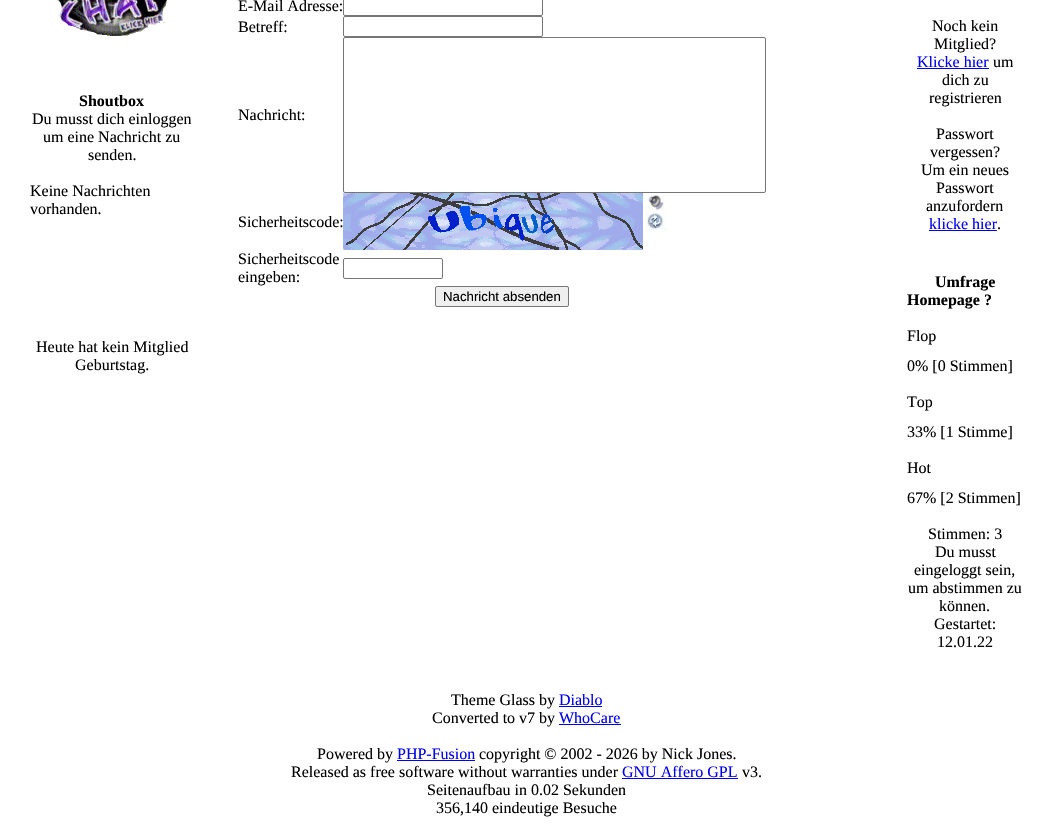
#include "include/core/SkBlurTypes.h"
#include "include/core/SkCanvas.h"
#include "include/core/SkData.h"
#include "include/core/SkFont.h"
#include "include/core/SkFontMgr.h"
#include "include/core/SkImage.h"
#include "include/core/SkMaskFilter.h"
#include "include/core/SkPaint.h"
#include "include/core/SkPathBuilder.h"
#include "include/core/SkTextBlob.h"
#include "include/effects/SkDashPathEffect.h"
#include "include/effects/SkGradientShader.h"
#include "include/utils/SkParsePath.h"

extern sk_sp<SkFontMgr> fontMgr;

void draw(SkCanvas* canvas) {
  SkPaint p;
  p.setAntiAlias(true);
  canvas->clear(SK_ColorWHITE);
  canvas->drawImageRect(SkImages::DeferredFromEncodedData(SkData::MakeFromFileName("images/1.png")), SkRect::MakeLTRB(57, 0, 167, 36), SkSamplingOptions());
  p.setStyle(SkPaint::kStroke_Style);
  p.setStrokeWidth(1);
  p.setColor(SkColorSetRGB(118, 118, 118));
  canvas->drawRoundRect(SkRect::MakeLTRB(343.5f, -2.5f, 542.5f, 15.5f), 1.5f, 1.5f, p);
  canvas->drawRoundRect(SkRect::MakeLTRB(343.5f, 16.5f, 542.5f, 36.5f), 1.5f, 1.5f, p);
  canvas->drawRoundRect(SkRect::MakeLTRB(343.5f, 37.5f, 765.5f, 192.5f), 1.5f, 1.5f, p);
  canvas->drawImageRect(SkImages::DeferredFromEncodedData(SkData::MakeFromFileName("images/2.png")), SkRect::MakeLTRB(343, 193, 643, 250), SkSamplingOptions());
  canvas->drawImageRect(SkImages::DeferredFromEncodedData(SkData::MakeFromFileName("images/3.png")), SkRect::MakeLTRB(648, 195, 664, 211), SkSamplingOptions());
  canvas->drawImageRect(SkImages::DeferredFromEncodedData(SkData::MakeFromFileName("images/4.png")), SkRect::MakeLTRB(646, 212, 666, 230), SkSamplingOptions());
  canvas->drawRoundRect(SkRect::MakeLTRB(343.5f, 258.5f, 442.5f, 278.5f), 1.5f, 1.5f, p);
  p.setStyle(SkPaint::kFill_Style);
  p.setColor(SkColorSetRGB(239, 239, 239));
  canvas->drawRoundRect(SkRect::MakeLTRB(435.5f, 286.5f, 568.5f, 306.5f), 1.5f, 1.5f, p);
  p.setStyle(SkPaint::kStroke_Style);
  p.setColor(SkColorSetRGB(118, 118, 118));
  canvas->drawRoundRect(SkRect::MakeLTRB(435.5f, 286.5f, 568.5f, 306.5f), 1.5f, 1.5f, p);
  p.setStyle(SkPaint::kFill_Style);
  p.setColor(SkColorSetRGB(0, 0, 238));
  canvas->drawRect(SkRect::MakeLTRB(917, 68, 989, 69), p);
  canvas->drawRect(SkRect::MakeLTRB(929, 230, 997, 231), p);
  canvas->drawRect(SkRect::MakeLTRB(559, 706, 602, 707), p);
  canvas->drawRect(SkRect::MakeLTRB(559, 724, 621, 725), p);
  canvas->drawRect(SkRect::MakeLTRB(397, 760, 475, 761), p);
  canvas->drawRect(SkRect::MakeLTRB(622, 778, 738, 779), p);
  SkFont font1(fontMgr->matchFamilyStyle("Liberation Serif", SkFontStyle::Bold()), 16);
  font1.setSubpixel(true);
  p.setColor(SK_ColorBLACK);
  canvas->drawString("Shoutbox", 79, 106, font1, p);
  SkFont font2(fontMgr->matchFamilyStyle("Liberation Serif", SkFontStyle::Normal()), 16);
  font2.setSubpixel(true);
  canvas->drawString("Du musst dich einloggen", 32, 124, font2, p);
  canvas->drawString("um eine Nachricht zu", 43, 142, font2, p);
  canvas->drawString("senden.", 88, 160, font2, p);
  canvas->drawString("Keine Nachrichten", 30, 196, font2, p);
  canvas->drawString("vorhanden.", 30, 214, font2, p);
  canvas->drawString("Heute hat kein Mitglied", 36, 352, font2, p);
  canvas->drawString("Geburtstag.", 75, 370, font2, p);
  canvas->drawString("E-Mail Adresse:", 238, 11, font2, p);
  canvas->drawString("Betreff:", 238, 32, font2, p);
  canvas->drawString("Nachricht:", 238, 120, font2, p);
  canvas->drawString("Sicherheitscode:", 238, 227, font2, p);
  canvas->drawString("Sicherheitscode", 238, 264, font2, p);
  canvas->drawString("eingeben:", 238, 282, font2, p);
  SkFont font3(fontMgr->matchFamilyStyle("Liberation Sans", SkFontStyle::Normal()), 13.25f);
  font3.setSubpixel(true);
  canvas->drawString("Nachricht absenden", 443, 301, font3, p);
  canvas->drawString("Noch kein", 932, 31, font2, p);
  canvas->drawString("Mitglied?", 934, 49, font2, p);
  p.setColor(SkColorSetRGB(0, 0, 238));
  canvas->drawString("Klicke hier", 917, 67, font2, p);
  p.setColor(SK_ColorBLACK);
  canvas->drawString("um", 993, 67, font2, p);
  canvas->drawString("dich zu", 942, 85, font2, p);
  canvas->drawString("registrieren", 929, 103, font2, p);
  canvas->drawString("Passwort", 936, 139, font2, p);
  canvas->drawString("vergessen?", 930, 157, font2, p);
  canvas->drawString("Um ein neues", 921, 175, font2, p);
  canvas->drawString("Passwort", 936, 193, font2, p);
  canvas->drawString("anzufordern", 926, 211, font2, p);
  p.setColor(SkColorSetRGB(0, 0, 238));
  canvas->drawString("klicke hier", 929, 229, font2, p);
  p.setColor(SK_ColorBLACK);
  canvas->drawString(".", 997, 229, font2, p);
  canvas->drawString("Umfrage", 935, 287, font1, p);
  canvas->drawString("Homepage ?", 907, 305, font1, p);
  canvas->drawString("Flop", 907, 341, font2, p);
  canvas->drawString("0% [0 Stimmen]", 907, 371, font2, p);
  canvas->drawString("Top", 907, 407, font2, p);
  canvas->drawString("33% [1 Stimme]", 907, 437, font2, p);
  canvas->drawString("Hot", 907, 473, font2, p);
  canvas->drawString("67% [2 Stimmen]", 907, 503, font2, p);
  canvas->drawString("Stimmen: 3", 928, 539, font2, p);
  canvas->drawString("Du musst", 935, 557, font2, p);
  canvas->drawString("eingeloggt sein,", 914, 575, font2, p);
  canvas->drawString("um abstimmen zu", 908, 593, font2, p);
  canvas->drawString("können.", 939, 611, font2, p);
  canvas->drawString("Gestartet:", 934, 629, font2, p);
  canvas->drawString("12.01.22", 937, 647, font2, p);
  canvas->drawString("Theme Glass by", 451, 705, font2, p);
  p.setColor(SkColorSetRGB(0, 0, 238));
  canvas->drawString("Diablo", 559, 705, font2, p);
  p.setColor(SK_ColorBLACK);
  canvas->drawString("Converted to v7 by", 432, 723, font2, p);
  p.setColor(SkColorSetRGB(0, 0, 238));
  canvas->drawString("WhoCare", 559, 723, font2, p);
  p.setColor(SK_ColorBLACK);
  canvas->drawString("Powered by", 317, 759, font2, p);
  p.setColor(SkColorSetRGB(0, 0, 238));
  canvas->drawString("PHP-Fusion", 397, 759, font2, p);
  p.setColor(SK_ColorBLACK);
  canvas->drawString("copyright © 2002 - 2026 by Nick Jones.", 479, 759, font2, p);
  canvas->drawString("Released as free software without warranties under", 291, 777, font2, p);
  p.setColor(SkColorSetRGB(0, 0, 238));
  canvas->drawString("GNU Affero GPL", 622, 777, font2, p);
  p.setColor(SK_ColorBLACK);
  canvas->drawString("v3.", 742, 777, font2, p);
  canvas->drawString("Seitenaufbau in 0.02 Sekunden", 427, 795, font2, p);
  canvas->drawString("356,140 eindeutige Besuche", 436, 813, font2, p);
}
